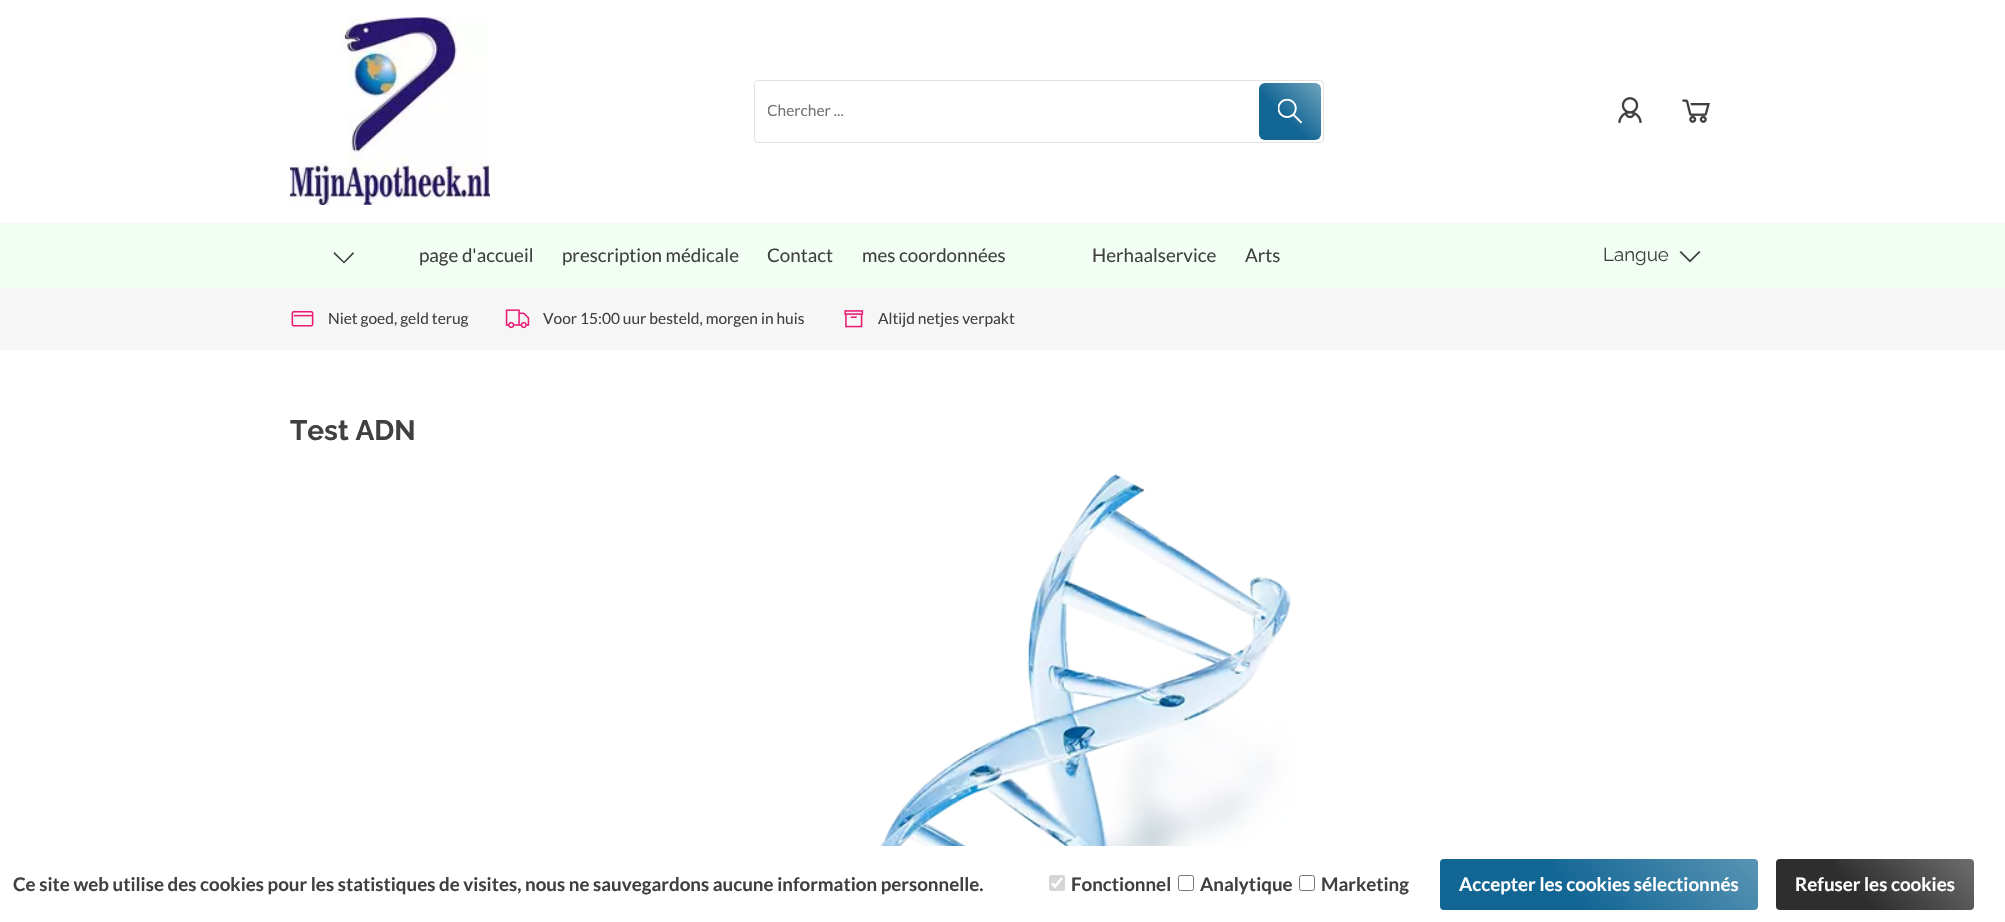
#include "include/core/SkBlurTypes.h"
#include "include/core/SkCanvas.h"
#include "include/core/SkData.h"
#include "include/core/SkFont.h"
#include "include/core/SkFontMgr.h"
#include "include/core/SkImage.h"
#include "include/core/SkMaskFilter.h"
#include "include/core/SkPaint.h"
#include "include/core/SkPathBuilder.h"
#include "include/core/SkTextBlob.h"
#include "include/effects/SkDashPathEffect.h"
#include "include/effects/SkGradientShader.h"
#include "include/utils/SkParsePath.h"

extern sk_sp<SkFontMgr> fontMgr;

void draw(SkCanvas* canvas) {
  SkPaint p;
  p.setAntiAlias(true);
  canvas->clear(SK_ColorWHITE);
  canvas->drawImageRect(SkImages::DeferredFromEncodedData(SkData::MakeFromFileName("images/1.png")), SkRect::MakeLTRB(290, 17, 490, 205), SkSamplingOptions());
  p.setStyle(SkPaint::kStroke_Style);
  p.setStrokeWidth(1);
  p.setColor(SkColorSetRGB(227, 227, 227));
  canvas->drawRoundRect(SkRect::MakeLTRB(754.5f, 80.5f, 1323.5f, 142.5f), 3.5f, 3.5f, p);
  p.setStyle(SkPaint::kFill_Style);
  p.setColor(SkColorSetRGB(18, 102, 148));
  canvas->drawRoundRect(SkRect::MakeLTRB(1259, 83, 1321, 140), 6, 6, p);
  {
    const SkColor colors[] = {SkColorSetARGB(102, 255, 255, 255), SkColorSetARGB(0, 255, 255, 255)};
    const float stops[] = {0, 0.6f};
    const SkPoint ends[] = {{1320, 81}, {1260, 141}};
    p.setShader(SkGradientShader::MakeLinear(ends, colors, stops, 2, SkTileMode::kClamp));
    p.setAlpha(255);
  }
  canvas->drawRect(SkRect::MakeLTRB(1259, 83, 1321, 140), p);
  canvas->drawImageRect(SkImages::DeferredFromEncodedData(SkData::MakeFromFileName("images/2.png")), SkRect::MakeLTRB(1278, 99, 1303, 124), SkSamplingOptions());
  canvas->drawImageRect(SkImages::DeferredFromEncodedData(SkData::MakeFromFileName("images/3.png")), SkRect::MakeLTRB(1618, 97, 1642, 123), SkSamplingOptions());
  canvas->drawImageRect(SkImages::DeferredFromEncodedData(SkData::MakeFromFileName("images/4.png")), SkRect::MakeLTRB(1682, 99, 1710, 123), SkSamplingOptions());
  p.setShader(nullptr);
  p.setColor(SkColorSetRGB(242, 254, 243));
  canvas->drawRect(SkRect::MakeLTRB(0, 223, 2005, 288), p);
  p.setColor(SkColorSetRGB(64, 64, 64));
  canvas->drawPath(SkPathBuilder().moveTo(334.5f, 252).lineTo(333.5f, 253.5f).lineTo(344, 263.5f).lineTo(354, 253.5f).lineTo(353, 252).lineTo(344, 261.5f).close().detach(), p);
  canvas->drawPath(SkPathBuilder().moveTo(1681, 251).lineTo(1679.5f, 252).lineTo(1690, 262.5f).lineTo(1700.5f, 252).lineTo(1699, 251).lineTo(1690, 260).close().detach(), p);
  p.setColor(SkColorSetRGB(246, 246, 246));
  canvas->drawRect(SkRect::MakeLTRB(0, 288, 2005, 350), p);
  canvas->drawImageRect(SkImages::DeferredFromEncodedData(SkData::MakeFromFileName("images/5.png")), SkRect::MakeLTRB(291, 310, 314, 327), SkSamplingOptions());
  canvas->drawImageRect(SkImages::DeferredFromEncodedData(SkData::MakeFromFileName("images/6.png")), SkRect::MakeLTRB(505, 309, 530, 329), SkSamplingOptions());
  canvas->drawImageRect(SkImages::DeferredFromEncodedData(SkData::MakeFromFileName("images/7.png")), SkRect::MakeLTRB(844, 310, 864, 328), SkSamplingOptions());
  canvas->drawImageRect(SkImages::DeferredFromEncodedData(SkData::MakeFromFileName("images/8.png")), SkRect::MakeLTRB(879, 473, 1291, 846), SkSamplingOptions());
  p.setColor(SkColorSetRGB(214, 214, 214));
  canvas->drawRoundRect(SkRect::MakeLTRB(1049, 875, 1065, 891), 2.5f, 2.5f, p);
  p.setStyle(SkPaint::kStroke_Style);
  p.setStrokeWidth(2.6f);
  p.setColor(SK_ColorWHITE);
  canvas->drawPath(SkPathBuilder().moveTo(1052, 883).lineTo(1055, 886.5f).lineTo(1062, 878).detach(), p);
  p.setStrokeWidth(1);
  p.setColor(SkColorSetRGB(118, 118, 118));
  canvas->drawRoundRect(SkRect::MakeLTRB(1178.5f, 875.5f, 1193.5f, 890.5f), 2, 2, p);
  canvas->drawRoundRect(SkRect::MakeLTRB(1299.5f, 875.5f, 1314.5f, 890.5f), 2, 2, p);
  p.setStyle(SkPaint::kFill_Style);
  p.setColor(SkColorSetRGB(18, 102, 148));
  canvas->drawRoundRect(SkRect::MakeLTRB(1440, 859, 1758, 910), 4, 4, p);
  {
    const SkColor colors[] = {SkColorSetARGB(77, 255, 255, 255), SkColorSetARGB(0, 255, 255, 255)};
    const float stops[] = {0, 0.6f};
    const SkPoint ends[] = {{1691, 792}, {1507, 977}};
    p.setShader(SkGradientShader::MakeLinear(ends, colors, stops, 2, SkTileMode::kClamp));
    p.setAlpha(255);
  }
  canvas->drawRect(SkRect::MakeLTRB(1553, 859, 1758, 910), p);
  p.setShader(nullptr);
  p.setColor(SkColorSetRGB(46, 46, 46));
  canvas->drawRoundRect(SkRect::MakeLTRB(1776, 859, 1974, 910), 4, 4, p);
  {
    const SkColor colors[] = {SkColorSetARGB(77, 255, 255, 255), SkColorSetARGB(0, 255, 255, 255)};
    const float stops[] = {0, 0.6f};
    const SkPoint ends[] = {{1937, 822}, {1813, 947}};
    p.setShader(SkGradientShader::MakeLinear(ends, colors, stops, 2, SkTileMode::kClamp));
    p.setAlpha(255);
  }
  canvas->drawRect(SkRect::MakeLTRB(1836, 859, 1974, 910), p);
  canvas->save();
  canvas->clipRect(SkRect::MakeLTRB(768, 101, 1305, 120));
  SkFont font1(fontMgr->matchFamilyStyle("Lato", SkFontStyle::Normal()), 15.5f);
  font1.setSubpixel(true);
  p.setShader(nullptr);
  p.setColor(SkColorSetRGB(117, 117, 117));
  canvas->drawString("Chercher ...", 767, 116, font1, p);
  canvas->restore();
  SkFont font2(fontMgr->matchFamilyStyle("Lato", SkFontStyle::Normal()), 18.75f);
  font2.setSubpixel(true);
  p.setColor(SkColorSetRGB(64, 64, 64));
  canvas->drawString("page d'accueil", 419, 262, font2, p);
  canvas->drawString("prescription médicale", 562, 262, font2, p);
  canvas->drawString("Contact", 767, 262, font2, p);
  canvas->drawString("mes coordonnées", 862, 262, font2, p);
  canvas->drawString("Herhaalservice", 1092, 262, font2, p);
  canvas->drawString("Arts", 1245, 262, font2, p);
  SkFont font3(fontMgr->matchFamilyStyle("Raleway", SkFontStyle::Normal()), 18.75f);
  font3.setSubpixel(true);
  canvas->drawString("Langue", 1603, 261, font3, p);
  canvas->drawString("Niet goed, geld terug", 328, 324, font1, p);
  canvas->drawString("Voor 15:00 uur besteld, morgen in huis", 543, 324, font1, p);
  canvas->drawString("Altijd netjes verpakt", 878, 324, font1, p);
  SkFont font4(fontMgr->matchFamilyStyle("Raleway", SkFontStyle::Bold()), 28);
  font4.setSubpixel(true);
  canvas->drawString("Test ADN", 290, 440, font4, p);
  SkFont font5(fontMgr->matchFamilyStyle("Lato", SkFontStyle::Bold()), 18.75f);
  font5.setSubpixel(true);
  canvas->drawString("Ce site web utilise des cookies pour les statistiques de visites, nous ne sauvegardons aucune information personnelle.", 13, 891, font5, p);
  canvas->drawString("Fonctionnel", 1071, 891, font5, p);
  canvas->drawString("Analytique", 1200, 891, font5, p);
  canvas->drawString("Marketing", 1321, 891, font5, p);
  p.setColor(SK_ColorWHITE);
  canvas->drawString("Accepter les cookies sélectionnés", 1459, 891, font5, p);
  canvas->drawString("Refuser les cookies", 1795, 891, font5, p);
}
